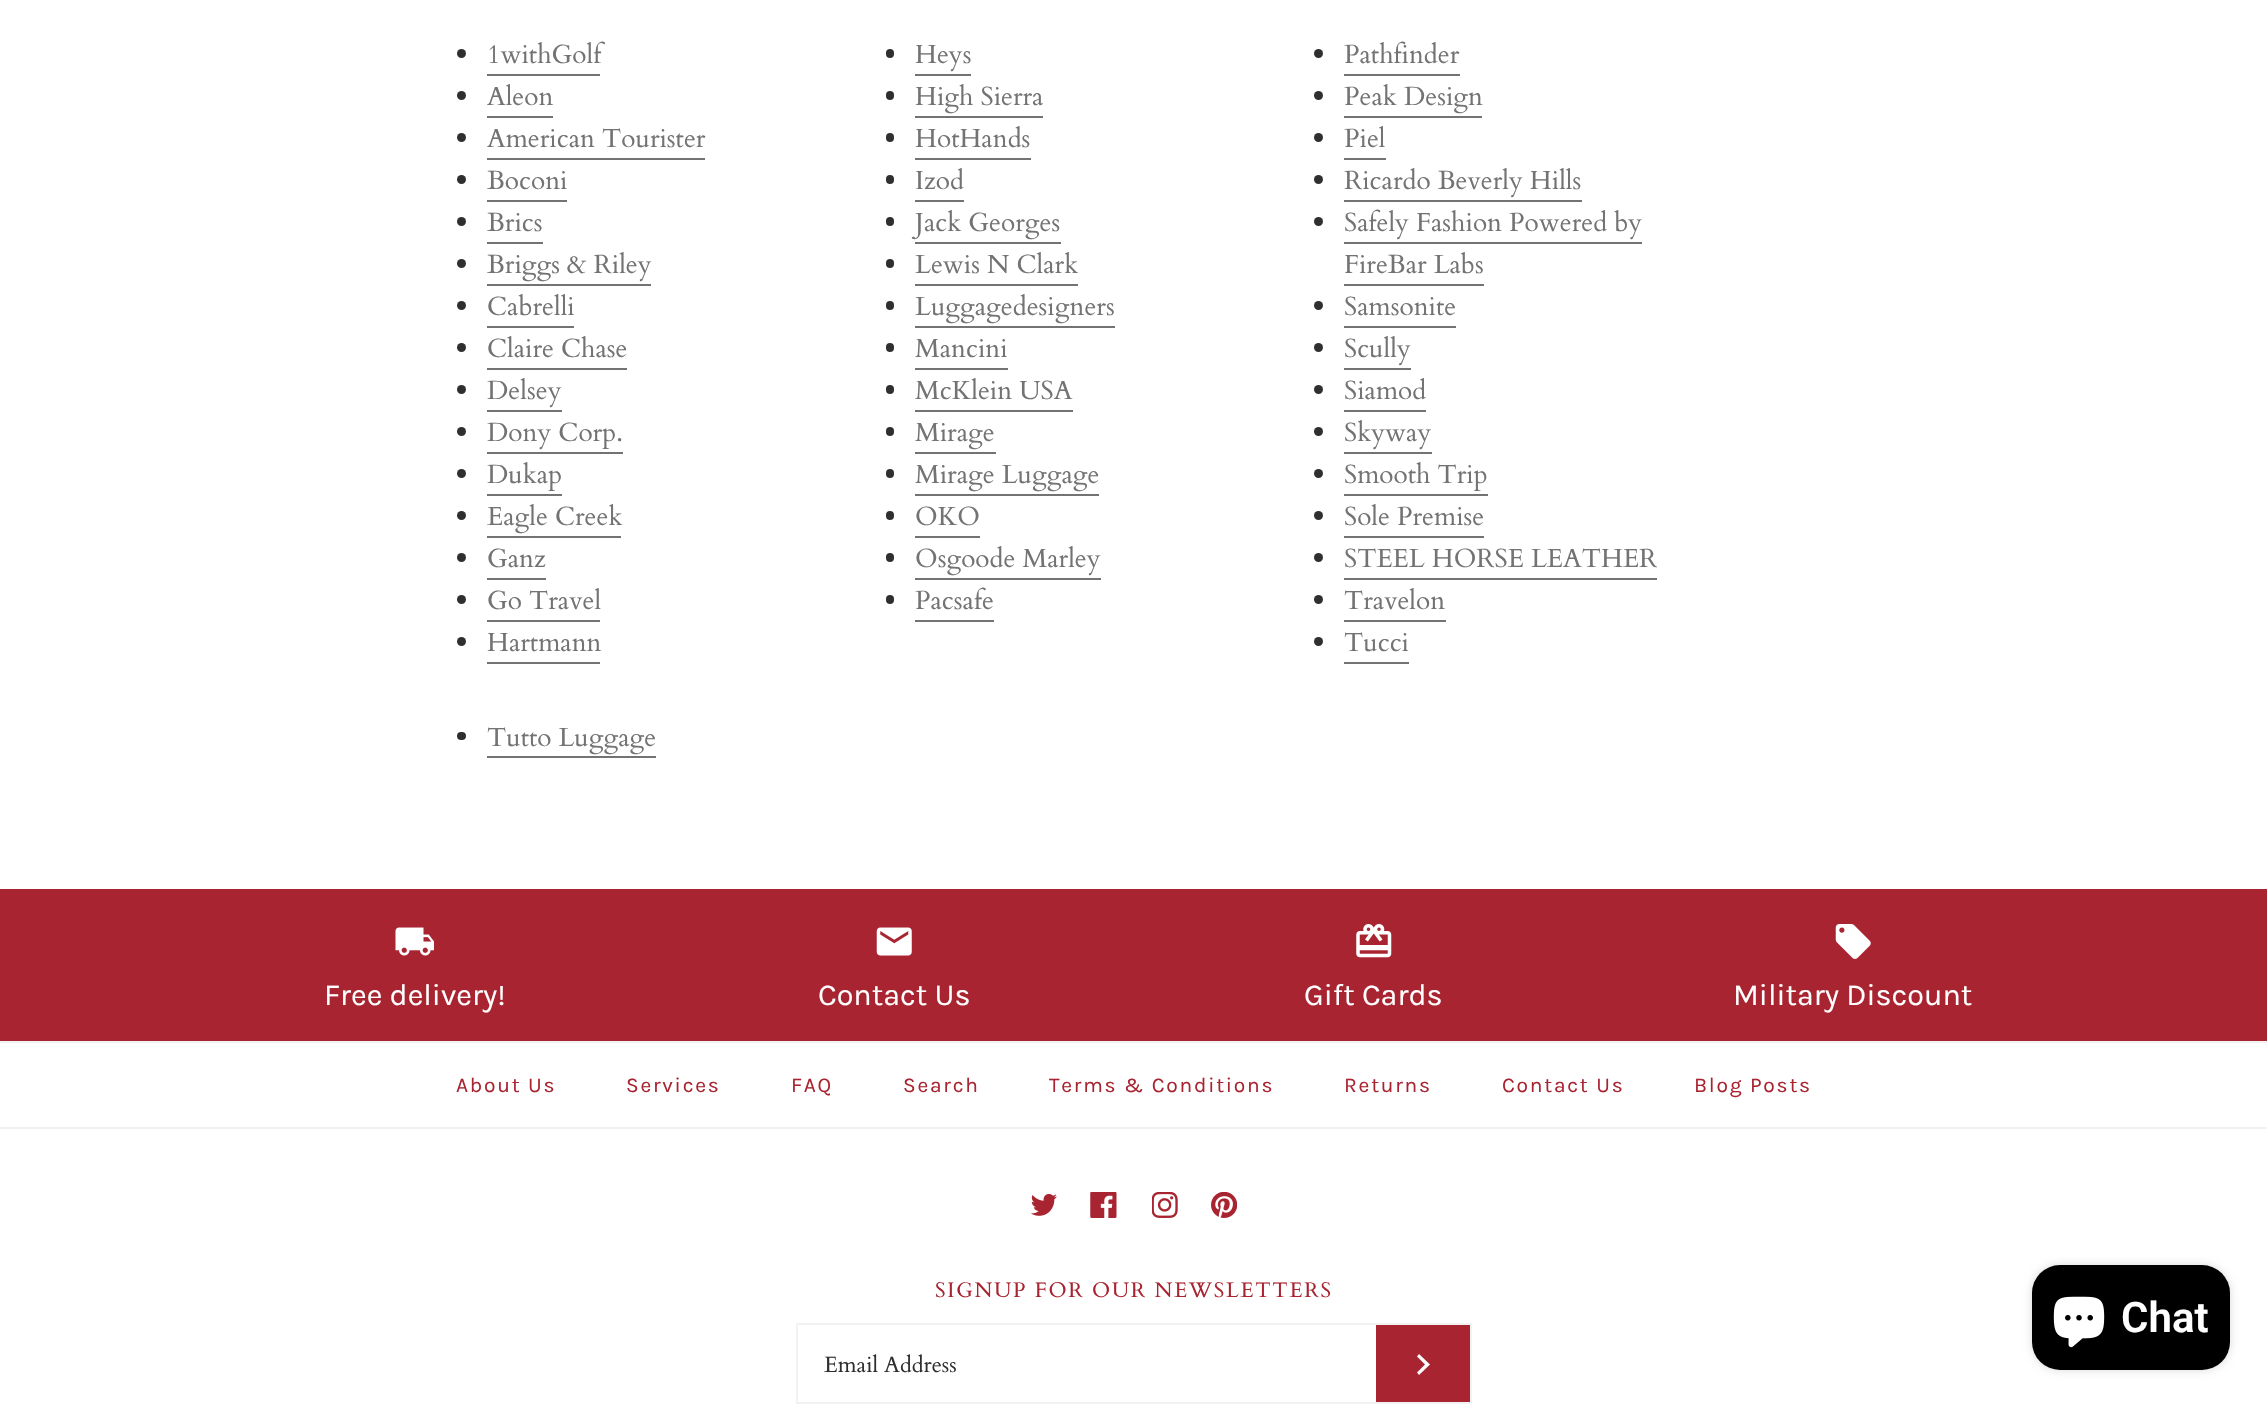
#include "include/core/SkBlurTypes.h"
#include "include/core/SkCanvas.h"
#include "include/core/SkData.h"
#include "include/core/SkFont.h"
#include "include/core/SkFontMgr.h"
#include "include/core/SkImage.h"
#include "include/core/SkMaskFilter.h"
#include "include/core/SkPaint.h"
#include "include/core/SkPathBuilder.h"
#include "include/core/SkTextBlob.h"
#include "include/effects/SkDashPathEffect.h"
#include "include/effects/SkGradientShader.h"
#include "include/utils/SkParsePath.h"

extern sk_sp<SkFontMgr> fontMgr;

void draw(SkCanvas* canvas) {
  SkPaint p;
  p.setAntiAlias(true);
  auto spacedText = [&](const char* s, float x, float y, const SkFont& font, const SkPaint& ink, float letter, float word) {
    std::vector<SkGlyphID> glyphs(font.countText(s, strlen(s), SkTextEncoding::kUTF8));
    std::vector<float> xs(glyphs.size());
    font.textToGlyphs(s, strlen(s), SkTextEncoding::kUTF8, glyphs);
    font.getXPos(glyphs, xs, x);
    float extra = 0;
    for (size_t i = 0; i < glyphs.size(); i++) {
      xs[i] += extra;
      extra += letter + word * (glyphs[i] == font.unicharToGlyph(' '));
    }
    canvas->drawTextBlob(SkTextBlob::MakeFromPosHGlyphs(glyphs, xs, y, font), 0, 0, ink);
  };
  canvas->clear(SK_ColorWHITE);
  p.setColor(SkColorSetRGB(47, 47, 47));
  canvas->drawCircle(461.5f, 53.5f, 4.5f, p);
  p.setColor(SkColorSetRGB(115, 115, 115));
  canvas->drawRect(SkRect::MakeLTRB(487, 74, 600, 76), p);
  p.setColor(SkColorSetRGB(47, 47, 47));
  canvas->drawCircle(461.5f, 95.5f, 4.5f, p);
  p.setColor(SkColorSetRGB(115, 115, 115));
  canvas->drawRect(SkRect::MakeLTRB(487, 116, 553, 118), p);
  p.setColor(SkColorSetRGB(47, 47, 47));
  canvas->drawCircle(461.5f, 137.5f, 4.5f, p);
  p.setColor(SkColorSetRGB(115, 115, 115));
  canvas->drawRect(SkRect::MakeLTRB(487, 158, 705, 160), p);
  p.setColor(SkColorSetRGB(47, 47, 47));
  canvas->drawCircle(461.5f, 179.5f, 4.5f, p);
  p.setColor(SkColorSetRGB(115, 115, 115));
  canvas->drawRect(SkRect::MakeLTRB(487, 200, 567, 202), p);
  p.setColor(SkColorSetRGB(47, 47, 47));
  canvas->drawCircle(461.5f, 221.5f, 4.5f, p);
  p.setColor(SkColorSetRGB(115, 115, 115));
  canvas->drawRect(SkRect::MakeLTRB(487, 242, 543, 244), p);
  p.setColor(SkColorSetRGB(47, 47, 47));
  canvas->drawCircle(461.5f, 263.5f, 4.5f, p);
  p.setColor(SkColorSetRGB(115, 115, 115));
  canvas->drawRect(SkRect::MakeLTRB(487, 284, 651, 286), p);
  p.setColor(SkColorSetRGB(47, 47, 47));
  canvas->drawCircle(461.5f, 305.5f, 4.5f, p);
  p.setColor(SkColorSetRGB(115, 115, 115));
  canvas->drawRect(SkRect::MakeLTRB(487, 326, 574, 328), p);
  p.setColor(SkColorSetRGB(47, 47, 47));
  canvas->drawCircle(461.5f, 347.5f, 4.5f, p);
  p.setColor(SkColorSetRGB(115, 115, 115));
  canvas->drawRect(SkRect::MakeLTRB(487, 368, 627, 370), p);
  p.setColor(SkColorSetRGB(47, 47, 47));
  canvas->drawCircle(461.5f, 389.5f, 4.5f, p);
  p.setColor(SkColorSetRGB(115, 115, 115));
  canvas->drawRect(SkRect::MakeLTRB(487, 410, 562, 412), p);
  p.setColor(SkColorSetRGB(47, 47, 47));
  canvas->drawCircle(461.5f, 431.5f, 4.5f, p);
  p.setColor(SkColorSetRGB(115, 115, 115));
  canvas->drawRect(SkRect::MakeLTRB(487, 452, 623, 454), p);
  p.setColor(SkColorSetRGB(47, 47, 47));
  canvas->drawCircle(461.5f, 473.5f, 4.5f, p);
  p.setColor(SkColorSetRGB(115, 115, 115));
  canvas->drawRect(SkRect::MakeLTRB(487, 494, 562, 496), p);
  p.setColor(SkColorSetRGB(47, 47, 47));
  canvas->drawCircle(461.5f, 515.5f, 4.5f, p);
  p.setColor(SkColorSetRGB(115, 115, 115));
  canvas->drawRect(SkRect::MakeLTRB(487, 536, 621, 538), p);
  p.setColor(SkColorSetRGB(47, 47, 47));
  canvas->drawCircle(461.5f, 557.5f, 4.5f, p);
  p.setColor(SkColorSetRGB(115, 115, 115));
  canvas->drawRect(SkRect::MakeLTRB(487, 578, 546, 580), p);
  p.setColor(SkColorSetRGB(47, 47, 47));
  canvas->drawCircle(461.5f, 599.5f, 4.5f, p);
  p.setColor(SkColorSetRGB(115, 115, 115));
  canvas->drawRect(SkRect::MakeLTRB(487, 620, 600, 622), p);
  p.setColor(SkColorSetRGB(47, 47, 47));
  canvas->drawCircle(461.5f, 641.5f, 4.5f, p);
  p.setColor(SkColorSetRGB(115, 115, 115));
  canvas->drawRect(SkRect::MakeLTRB(487, 662, 600, 664), p);
  p.setColor(SkColorSetRGB(47, 47, 47));
  canvas->drawRoundRect(SkRect::MakeLTRB(886, 49, 894, 58), 4, 4, p);
  p.setColor(SkColorSetRGB(115, 115, 115));
  canvas->drawRect(SkRect::MakeLTRB(915, 74, 971, 76), p);
  p.setColor(SkColorSetRGB(47, 47, 47));
  canvas->drawRoundRect(SkRect::MakeLTRB(886, 91, 894, 100), 4, 4, p);
  p.setColor(SkColorSetRGB(115, 115, 115));
  canvas->drawRect(SkRect::MakeLTRB(915, 116, 1043, 118), p);
  p.setColor(SkColorSetRGB(47, 47, 47));
  canvas->drawRoundRect(SkRect::MakeLTRB(886, 133, 894, 142), 4, 4, p);
  p.setColor(SkColorSetRGB(115, 115, 115));
  canvas->drawRect(SkRect::MakeLTRB(915, 158, 1031, 160), p);
  p.setColor(SkColorSetRGB(47, 47, 47));
  canvas->drawRoundRect(SkRect::MakeLTRB(886, 175, 894, 184), 4, 4, p);
  p.setColor(SkColorSetRGB(115, 115, 115));
  canvas->drawRect(SkRect::MakeLTRB(915, 200, 964, 202), p);
  p.setColor(SkColorSetRGB(47, 47, 47));
  canvas->drawRoundRect(SkRect::MakeLTRB(886, 217, 894, 226), 4, 4, p);
  p.setColor(SkColorSetRGB(115, 115, 115));
  canvas->drawRect(SkRect::MakeLTRB(915, 242, 1061, 244), p);
  p.setColor(SkColorSetRGB(47, 47, 47));
  canvas->drawRoundRect(SkRect::MakeLTRB(886, 259, 894, 268), 4, 4, p);
  p.setColor(SkColorSetRGB(115, 115, 115));
  canvas->drawRect(SkRect::MakeLTRB(915, 284, 1078, 286), p);
  p.setColor(SkColorSetRGB(47, 47, 47));
  canvas->drawRoundRect(SkRect::MakeLTRB(886, 301, 894, 310), 4, 4, p);
  p.setColor(SkColorSetRGB(115, 115, 115));
  canvas->drawRect(SkRect::MakeLTRB(915, 326, 1115, 328), p);
  p.setColor(SkColorSetRGB(47, 47, 47));
  canvas->drawRoundRect(SkRect::MakeLTRB(886, 343, 894, 352), 4, 4, p);
  p.setColor(SkColorSetRGB(115, 115, 115));
  canvas->drawRect(SkRect::MakeLTRB(915, 368, 1008, 370), p);
  p.setColor(SkColorSetRGB(47, 47, 47));
  canvas->drawRoundRect(SkRect::MakeLTRB(886, 385, 894, 394), 4, 4, p);
  p.setColor(SkColorSetRGB(115, 115, 115));
  canvas->drawRect(SkRect::MakeLTRB(915, 410, 1073, 412), p);
  p.setColor(SkColorSetRGB(47, 47, 47));
  canvas->drawRoundRect(SkRect::MakeLTRB(886, 427, 894, 436), 4, 4, p);
  p.setColor(SkColorSetRGB(115, 115, 115));
  canvas->drawRect(SkRect::MakeLTRB(915, 452, 996, 454), p);
  p.setColor(SkColorSetRGB(47, 47, 47));
  canvas->drawRoundRect(SkRect::MakeLTRB(886, 469, 894, 478), 4, 4, p);
  p.setColor(SkColorSetRGB(115, 115, 115));
  canvas->drawRect(SkRect::MakeLTRB(915, 494, 1099, 496), p);
  p.setColor(SkColorSetRGB(47, 47, 47));
  canvas->drawRoundRect(SkRect::MakeLTRB(886, 511, 894, 520), 4, 4, p);
  p.setColor(SkColorSetRGB(115, 115, 115));
  canvas->drawRect(SkRect::MakeLTRB(915, 536, 980, 538), p);
  p.setColor(SkColorSetRGB(47, 47, 47));
  canvas->drawRoundRect(SkRect::MakeLTRB(886, 553, 894, 562), 4, 4, p);
  p.setColor(SkColorSetRGB(115, 115, 115));
  canvas->drawRect(SkRect::MakeLTRB(915, 578, 1101, 580), p);
  p.setColor(SkColorSetRGB(47, 47, 47));
  canvas->drawRoundRect(SkRect::MakeLTRB(886, 595, 894, 604), 4, 4, p);
  p.setColor(SkColorSetRGB(115, 115, 115));
  canvas->drawRect(SkRect::MakeLTRB(915, 620, 994, 622), p);
  p.setColor(SkColorSetRGB(47, 47, 47));
  canvas->drawCircle(1318.5f, 53.5f, 4.5f, p);
  p.setColor(SkColorSetRGB(115, 115, 115));
  canvas->drawRect(SkRect::MakeLTRB(1344, 74, 1460, 76), p);
  p.setColor(SkColorSetRGB(47, 47, 47));
  canvas->drawCircle(1318.5f, 95.5f, 4.5f, p);
  p.setColor(SkColorSetRGB(115, 115, 115));
  canvas->drawRect(SkRect::MakeLTRB(1344, 116, 1482, 118), p);
  p.setColor(SkColorSetRGB(47, 47, 47));
  canvas->drawCircle(1318.5f, 137.5f, 4.5f, p);
  p.setColor(SkColorSetRGB(115, 115, 115));
  canvas->drawRect(SkRect::MakeLTRB(1344, 158, 1386, 160), p);
  p.setColor(SkColorSetRGB(47, 47, 47));
  canvas->drawCircle(1318.5f, 179.5f, 4.5f, p);
  p.setColor(SkColorSetRGB(115, 115, 115));
  canvas->drawRect(SkRect::MakeLTRB(1344, 200, 1582, 202), p);
  p.setColor(SkColorSetRGB(47, 47, 47));
  canvas->drawCircle(1318.5f, 221.5f, 4.5f, p);
  p.setColor(SkColorSetRGB(115, 115, 115));
  canvas->drawRect(SkRect::MakeLTRB(1344, 242, 1642, 244), p);
  canvas->drawRect(SkRect::MakeLTRB(1344, 284, 1484, 286), p);
  p.setColor(SkColorSetRGB(47, 47, 47));
  canvas->drawCircle(1318.5f, 305.5f, 4.5f, p);
  p.setColor(SkColorSetRGB(115, 115, 115));
  canvas->drawRect(SkRect::MakeLTRB(1344, 326, 1456, 328), p);
  p.setColor(SkColorSetRGB(47, 47, 47));
  canvas->drawCircle(1318.5f, 347.5f, 4.5f, p);
  p.setColor(SkColorSetRGB(115, 115, 115));
  canvas->drawRect(SkRect::MakeLTRB(1344, 368, 1411, 370), p);
  p.setColor(SkColorSetRGB(47, 47, 47));
  canvas->drawCircle(1318.5f, 389.5f, 4.5f, p);
  p.setColor(SkColorSetRGB(115, 115, 115));
  canvas->drawRect(SkRect::MakeLTRB(1344, 410, 1426, 412), p);
  p.setColor(SkColorSetRGB(47, 47, 47));
  canvas->drawCircle(1318.5f, 431.5f, 4.5f, p);
  p.setColor(SkColorSetRGB(115, 115, 115));
  canvas->drawRect(SkRect::MakeLTRB(1344, 452, 1432, 454), p);
  p.setColor(SkColorSetRGB(47, 47, 47));
  canvas->drawCircle(1318.5f, 473.5f, 4.5f, p);
  p.setColor(SkColorSetRGB(115, 115, 115));
  canvas->drawRect(SkRect::MakeLTRB(1344, 494, 1488, 496), p);
  p.setColor(SkColorSetRGB(47, 47, 47));
  canvas->drawCircle(1318.5f, 515.5f, 4.5f, p);
  p.setColor(SkColorSetRGB(115, 115, 115));
  canvas->drawRect(SkRect::MakeLTRB(1344, 536, 1484, 538), p);
  p.setColor(SkColorSetRGB(47, 47, 47));
  canvas->drawCircle(1318.5f, 557.5f, 4.5f, p);
  p.setColor(SkColorSetRGB(115, 115, 115));
  canvas->drawRect(SkRect::MakeLTRB(1344, 578, 1657, 580), p);
  p.setColor(SkColorSetRGB(47, 47, 47));
  canvas->drawCircle(1318.5f, 599.5f, 4.5f, p);
  p.setColor(SkColorSetRGB(115, 115, 115));
  canvas->drawRect(SkRect::MakeLTRB(1344, 620, 1446, 622), p);
  p.setColor(SkColorSetRGB(47, 47, 47));
  canvas->drawCircle(1318.5f, 641.5f, 4.5f, p);
  p.setColor(SkColorSetRGB(115, 115, 115));
  canvas->drawRect(SkRect::MakeLTRB(1344, 662, 1409, 664), p);
  p.setColor(SkColorSetRGB(47, 47, 47));
  canvas->drawRoundRect(SkRect::MakeLTRB(457, 732, 466, 740), 4, 4, p);
  p.setColor(SkColorSetRGB(115, 115, 115));
  canvas->drawRect(SkRect::MakeLTRB(487, 756, 656, 758), p);
  p.setColor(SkColorSetRGB(169, 36, 49));
  canvas->drawRect(SkRect::MakeLTRB(0, 889, 2267, 1041), p);
  canvas->drawImageRect(SkImages::DeferredFromEncodedData(SkData::MakeFromFileName("images/1.png")), SkRect::MakeLTRB(395, 927, 434, 956), SkSamplingOptions());
  canvas->drawImageRect(SkImages::DeferredFromEncodedData(SkData::MakeFromFileName("images/2.png")), SkRect::MakeLTRB(876, 927, 912, 956), SkSamplingOptions());
  canvas->drawImageRect(SkImages::DeferredFromEncodedData(SkData::MakeFromFileName("images/3.png")), SkRect::MakeLTRB(1356, 924, 1392, 958), SkSamplingOptions());
  canvas->drawImageRect(SkImages::DeferredFromEncodedData(SkData::MakeFromFileName("images/4.png")), SkRect::MakeLTRB(1835, 924, 1871, 959), SkSamplingOptions());
  p.setColor(SkColorSetRGB(242, 242, 242));
  canvas->drawRect(SkRect::MakeLTRB(0, 1041, 2267, 1043), p);
  canvas->drawRect(SkRect::MakeLTRB(0, 1127, 2267, 1129), p);
  canvas->drawImageRect(SkImages::DeferredFromEncodedData(SkData::MakeFromFileName("images/5.png")), SkRect::MakeLTRB(1031, 1193, 1057, 1216), SkSamplingOptions());
  canvas->drawImageRect(SkImages::DeferredFromEncodedData(SkData::MakeFromFileName("images/6.png")), SkRect::MakeLTRB(1090, 1192, 1117, 1218), SkSamplingOptions());
  canvas->drawImageRect(SkImages::DeferredFromEncodedData(SkData::MakeFromFileName("images/7.png")), SkRect::MakeLTRB(1152, 1192, 1178, 1218), SkSamplingOptions());
  canvas->drawImageRect(SkImages::DeferredFromEncodedData(SkData::MakeFromFileName("images/8.png")), SkRect::MakeLTRB(1211, 1192, 1237, 1218), SkSamplingOptions());
  p.setStyle(SkPaint::kStroke_Style);
  p.setStrokeWidth(2);
  canvas->drawRect(SkRect::MakeLTRB(797, 1324, 1471, 1403), p);
  p.setStyle(SkPaint::kFill_Style);
  p.setColor(SkColorSetRGB(169, 36, 49));
  canvas->drawRect(SkRect::MakeLTRB(1376, 1325, 1470, 1402), p);
  p.setColor(SK_ColorWHITE);
  canvas->drawPath(SkPathBuilder().moveTo(1417, 1372.5f).lineTo(1425, 1364.5f).lineTo(1417, 1356.5f).lineTo(1419, 1354).lineTo(1430, 1364.5f).lineTo(1419, 1375).close().detach(), p);
  p.setColor(SkColorSetARGB(38, 0, 0, 0));
  p.setMaskFilter(SkMaskFilter::MakeBlur(kNormal_SkBlurStyle, 4.5f));
  canvas->drawRoundRect(SkRect::MakeLTRB(2032, 1265, 2230, 1370), 28, 28, p);
  p.setMaskFilter(nullptr);
  p.setColor(SK_ColorBLACK);
  canvas->drawRoundRect(SkRect::MakeLTRB(2032, 1265, 2230, 1370), 28, 28, p);
  canvas->drawImageRect(SkImages::DeferredFromEncodedData(SkData::MakeFromFileName("images/9.png")), SkRect::MakeLTRB(2053, 1296, 2105, 1348), SkSamplingOptions());
  SkFont font1(fontMgr->matchFamilyStyle("Cardo", SkFontStyle::Normal()), 26.25f);
  font1.setSubpixel(true);
  p.setColor(SkColorSetRGB(115, 115, 115));
  canvas->drawString("1withGolf", 487, 63, font1, p);
  canvas->drawString("Aleon", 487, 105, font1, p);
  canvas->drawString("American Tourister", 487, 147, font1, p);
  canvas->drawString("Boconi", 487, 189, font1, p);
  canvas->drawString("Brics", 487, 231, font1, p);
  canvas->drawString("Briggs & Riley", 487, 273, font1, p);
  canvas->drawString("Cabrelli", 487, 315, font1, p);
  canvas->drawString("Claire Chase", 487, 357, font1, p);
  canvas->drawString("Delsey", 487, 399, font1, p);
  canvas->drawString("Dony Corp.", 487, 441, font1, p);
  canvas->drawString("Dukap", 487, 483, font1, p);
  canvas->drawString("Eagle Creek", 487, 525, font1, p);
  canvas->drawString("Ganz", 487, 567, font1, p);
  canvas->drawString("Go Travel", 487, 609, font1, p);
  canvas->drawString("Hartmann", 487, 651, font1, p);
  canvas->drawString("Heys", 915, 63, font1, p);
  canvas->drawString("High Sierra", 915, 105, font1, p);
  canvas->drawString("HotHands", 915, 147, font1, p);
  canvas->drawString("Izod", 915, 189, font1, p);
  canvas->drawString("Jack Georges", 915, 231, font1, p);
  canvas->drawString("Lewis N Clark", 915, 273, font1, p);
  canvas->drawString("Luggagedesigners", 915, 315, font1, p);
  canvas->drawString("Mancini", 915, 357, font1, p);
  canvas->drawString("McKlein USA", 915, 399, font1, p);
  canvas->drawString("Mirage", 915, 441, font1, p);
  canvas->drawString("Mirage Luggage", 915, 483, font1, p);
  canvas->drawString("OKO", 915, 525, font1, p);
  canvas->drawString("Osgoode Marley", 915, 567, font1, p);
  canvas->drawString("Pacsafe", 915, 609, font1, p);
  canvas->drawString("Pathfinder", 1344, 63, font1, p);
  canvas->drawString("Peak Design", 1344, 105, font1, p);
  canvas->drawString("Piel", 1344, 147, font1, p);
  canvas->drawString("Ricardo Beverly Hills", 1344, 189, font1, p);
  canvas->drawString("Safely Fashion Powered by", 1344, 231, font1, p);
  canvas->drawString("FireBar Labs", 1344, 273, font1, p);
  canvas->drawString("Samsonite", 1344, 315, font1, p);
  canvas->drawString("Scully", 1344, 357, font1, p);
  canvas->drawString("Siamod", 1344, 399, font1, p);
  canvas->drawString("Skyway", 1344, 441, font1, p);
  canvas->drawString("Smooth Trip", 1344, 483, font1, p);
  canvas->drawString("Sole Premise", 1344, 525, font1, p);
  canvas->drawString("STEEL HORSE LEATHER", 1344, 567, font1, p);
  canvas->drawString("Travelon", 1344, 609, font1, p);
  canvas->drawString("Tucci", 1344, 651, font1, p);
  canvas->drawString("Tutto Luggage", 487, 746, font1, p);
  SkFont font2(fontMgr->matchFamilyStyle("Karla", SkFontStyle::Normal()), 30.5f);
  font2.setSubpixel(true);
  p.setColor(SK_ColorWHITE);
  canvas->drawString("Free delivery!", 324, 1005, font2, p);
  canvas->drawString("Contact Us", 818, 1005, font2, p);
  canvas->drawString("Gift Cards", 1304, 1005, font2, p);
  canvas->drawString("Military Discount", 1733, 1005, font2, p);
  SkFont font3(fontMgr->matchFamilyStyle("Karla", SkFontStyle::Normal()), 21);
  font3.setSubpixel(true);
  p.setColor(SkColorSetRGB(169, 36, 49));
  spacedText("About Us", 456, 1092, font3, p, 1.75f, 0);
  spacedText("Services", 626, 1092, font3, p, 1.75f, 0);
  spacedText("FAQ", 791, 1092, font3, p, 1.75f, 0);
  spacedText("Search", 903, 1092, font3, p, 1.75f, 0);
  spacedText("Terms & Conditions", 1049, 1092, font3, p, 1.75f, 0);
  spacedText("Returns", 1344, 1092, font3, p, 1.75f, 0);
  spacedText("Contact Us", 1502, 1092, font3, p, 1.75f, 0);
  spacedText("Blog Posts", 1694, 1092, font3, p, 1.75f, 0);
  SkFont font4(fontMgr->matchFamilyStyle("Cardo", SkFontStyle::Normal()), 21);
  font4.setSubpixel(true);
  spacedText("SIGNUP FOR OUR NEWSLETTERS", 935, 1297, font4, p, 1.75f, 0);
  SkFont font5(fontMgr->matchFamilyStyle("Cardo", SkFontStyle::Normal()), 22.25f);
  font5.setSubpixel(true);
  p.setColor(SkColorSetRGB(47, 47, 47));
  canvas->drawString("Email Address", 824, 1372, font5, p);
  SkFont font6(fontMgr->matchFamilyStyle("Roboto", SkFontStyle(600, SkFontStyle::kNormal_Width, SkFontStyle::kUpright_Slant)), 42);
  font6.setSubpixel(true);
  p.setColor(SK_ColorWHITE);
  canvas->drawString("Chat", 2121, 1332, font6, p);
}
